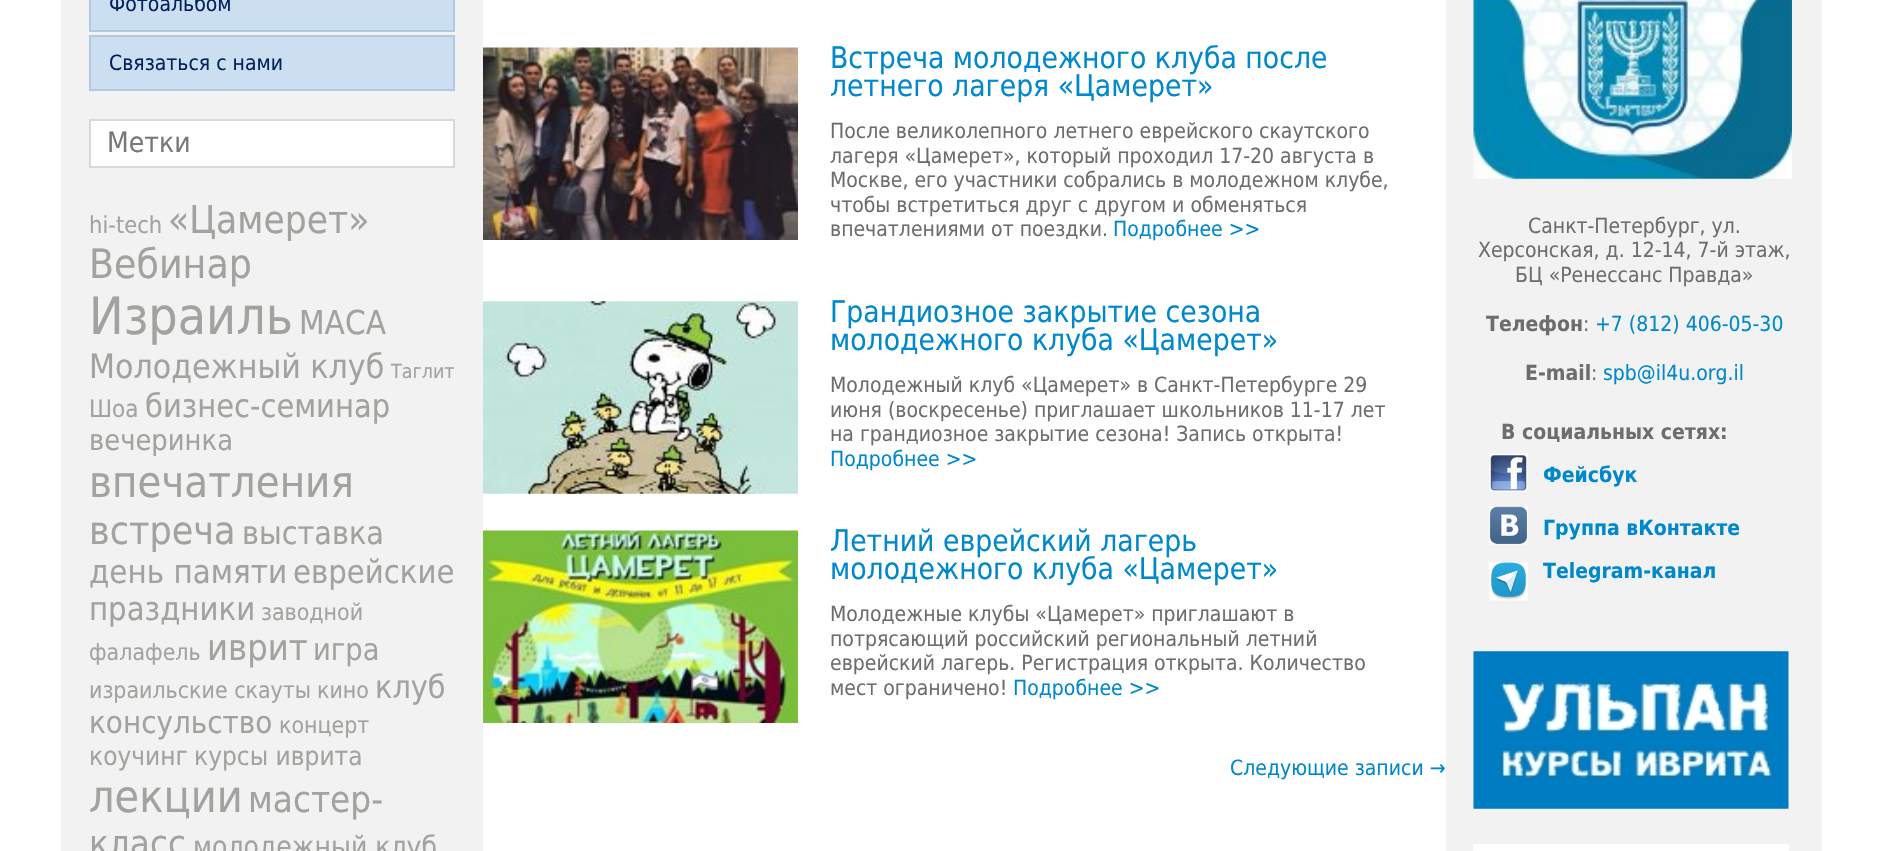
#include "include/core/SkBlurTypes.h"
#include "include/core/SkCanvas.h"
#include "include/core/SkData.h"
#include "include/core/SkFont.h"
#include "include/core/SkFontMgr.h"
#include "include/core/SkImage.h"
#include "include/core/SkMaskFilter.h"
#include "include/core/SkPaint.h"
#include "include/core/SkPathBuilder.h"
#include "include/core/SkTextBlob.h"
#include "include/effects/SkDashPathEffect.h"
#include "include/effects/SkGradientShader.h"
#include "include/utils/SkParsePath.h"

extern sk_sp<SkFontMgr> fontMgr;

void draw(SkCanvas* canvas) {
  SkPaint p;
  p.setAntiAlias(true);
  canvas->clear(SK_ColorWHITE);
  p.setColor(SkColorSetRGB(242, 242, 242));
  canvas->drawRect(SkRect::MakeLTRB(61, 0, 1822, 851), p);
  p.setColor(SK_ColorWHITE);
  canvas->drawRect(SkRect::MakeLTRB(483, 0, 1446, 851), p);
  p.setColor(SkColorSetRGB(204, 223, 240));
  canvas->drawRect(SkRect::MakeLTRB(90, -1, 454, 31), p);
  p.setStyle(SkPaint::kStroke_Style);
  p.setStrokeWidth(2);
  p.setColor(SkColorSetRGB(177, 202, 222));
  canvas->drawRect(SkRect::MakeLTRB(90, -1, 454, 31), p);
  p.setStyle(SkPaint::kFill_Style);
  p.setColor(SkColorSetRGB(204, 223, 240));
  canvas->drawRect(SkRect::MakeLTRB(90, 36, 454, 90), p);
  p.setStyle(SkPaint::kStroke_Style);
  p.setColor(SkColorSetRGB(177, 202, 222));
  canvas->drawRect(SkRect::MakeLTRB(90, 36, 454, 90), p);
  p.setStyle(SkPaint::kFill_Style);
  p.setColor(SK_ColorWHITE);
  canvas->drawRect(SkRect::MakeLTRB(90, 120, 454, 167), p);
  p.setStyle(SkPaint::kStroke_Style);
  p.setColor(SkColorSetRGB(216, 217, 218));
  canvas->drawRect(SkRect::MakeLTRB(90, 120, 454, 167), p);
  canvas->drawImageRect(SkImages::DeferredFromEncodedData(SkData::MakeFromFileName("images/1.png")), SkRect::MakeLTRB(483, 47, 798, 240), SkSamplingOptions());
  canvas->drawImageRect(SkImages::DeferredFromEncodedData(SkData::MakeFromFileName("images/2.png")), SkRect::MakeLTRB(483, 301, 798, 494), SkSamplingOptions());
  canvas->drawImageRect(SkImages::DeferredFromEncodedData(SkData::MakeFromFileName("images/3.png")), SkRect::MakeLTRB(483, 530, 798, 723), SkSamplingOptions());
  canvas->drawImageRect(SkImages::DeferredFromEncodedData(SkData::MakeFromFileName("images/4.png")), SkRect::MakeLTRB(1473, 0, 1792, 179), SkSamplingOptions());
  canvas->drawImageRect(SkImages::DeferredFromEncodedData(SkData::MakeFromFileName("images/5.png")), SkRect::MakeLTRB(1489, 453, 1528, 492), SkSamplingOptions());
  canvas->drawImageRect(SkImages::DeferredFromEncodedData(SkData::MakeFromFileName("images/6.png")), SkRect::MakeLTRB(1489, 506, 1528, 545), SkSamplingOptions());
  canvas->drawImageRect(SkImages::DeferredFromEncodedData(SkData::MakeFromFileName("images/7.png")), SkRect::MakeLTRB(1489, 562, 1528, 601), SkSamplingOptions());
  canvas->drawImageRect(SkImages::DeferredFromEncodedData(SkData::MakeFromFileName("images/8.png")), SkRect::MakeLTRB(1473, 651, 1789, 809), SkSamplingOptions());
  p.setStyle(SkPaint::kFill_Style);
  p.setColor(SK_ColorWHITE);
  canvas->drawRect(SkRect::MakeLTRB(1473, 844, 1789, 851), p);
  SkFont font1(fontMgr->matchFamilyStyle("DejaVu Sans", SkFontStyle::Normal()), 21);
  font1.setSubpixel(true);
  p.setColor(SkColorSetRGB(2, 34, 95));
  canvas->drawString("Фотоальбом", 109, 11, font1, p);
  canvas->drawString("Связаться с нами", 109, 70, font1, p);
  SkFont font2(fontMgr->matchFamilyStyle("DejaVu Sans", SkFontStyle::Normal()), 28);
  font2.setSubpixel(true);
  p.setColor(SkColorSetRGB(120, 120, 120));
  canvas->drawString("Метки", 107, 152, font2, p);
  SkFont font3(fontMgr->matchFamilyStyle("DejaVu Sans", SkFontStyle::Normal()), 23.5f);
  font3.setSubpixel(true);
  p.setColor(SkColorSetRGB(163, 162, 158));
  canvas->drawString("hi-tech", 89, 233, font3, p);
  SkFont font4(fontMgr->matchFamilyStyle("DejaVu Sans", SkFontStyle::Normal()), 38.5f);
  font4.setSubpixel(true);
  canvas->drawString("«Цамерет»", 168, 233, font4, p);
  SkFont font5(fontMgr->matchFamilyStyle("DejaVu Sans", SkFontStyle::Normal()), 40.5f);
  font5.setSubpixel(true);
  canvas->drawString("Вебинар", 89, 278, font5, p);
  SkFont font6(fontMgr->matchFamilyStyle("DejaVu Sans", SkFontStyle::Normal()), 51.5f);
  font6.setSubpixel(true);
  canvas->drawString("Израиль", 89, 334, font6, p);
  SkFont font7(fontMgr->matchFamilyStyle("DejaVu Sans", SkFontStyle::Normal()), 33);
  font7.setSubpixel(true);
  canvas->drawString("МАСА", 299, 334, font7, p);
  SkFont font8(fontMgr->matchFamilyStyle("DejaVu Sans", SkFontStyle::Normal()), 33.5f);
  font8.setSubpixel(true);
  canvas->drawString("Молодежный клуб", 89, 378, font8, p);
  SkFont font9(fontMgr->matchFamilyStyle("DejaVu Sans", SkFontStyle::Normal()), 19.5f);
  font9.setSubpixel(true);
  canvas->drawString("Таглит", 391, 378, font9, p);
  SkFont font10(fontMgr->matchFamilyStyle("DejaVu Sans", SkFontStyle::Normal()), 24);
  font10.setSubpixel(true);
  canvas->drawString("Шоа", 89, 417, font10, p);
  SkFont font11(fontMgr->matchFamilyStyle("DejaVu Sans", SkFontStyle::Normal()), 32.25f);
  font11.setSubpixel(true);
  canvas->drawString("бизнес-семинар", 145, 417, font11, p);
  SkFont font12(fontMgr->matchFamilyStyle("DejaVu Sans", SkFontStyle::Normal()), 28.75f);
  font12.setSubpixel(true);
  canvas->drawString("вечеринка", 89, 450, font12, p);
  SkFont font13(fontMgr->matchFamilyStyle("DejaVu Sans", SkFontStyle::Normal()), 43.25f);
  font13.setSubpixel(true);
  canvas->drawString("впечатления", 89, 497, font13, p);
  SkFont font14(fontMgr->matchFamilyStyle("DejaVu Sans", SkFontStyle::Normal()), 39);
  font14.setSubpixel(true);
  canvas->drawString("встреча", 89, 544, font14, p);
  SkFont font15(fontMgr->matchFamilyStyle("DejaVu Sans", SkFontStyle::Normal()), 32);
  font15.setSubpixel(true);
  canvas->drawString("выставка", 242, 544, font15, p);
  SkFont font16(fontMgr->matchFamilyStyle("DejaVu Sans", SkFontStyle::Normal()), 32.75f);
  font16.setSubpixel(true);
  canvas->drawString("день памяти", 89, 583, font16, p);
  SkFont font17(fontMgr->matchFamilyStyle("DejaVu Sans", SkFontStyle::Normal()), 32.5f);
  font17.setSubpixel(true);
  canvas->drawString("еврейские", 293, 583, font17, p);
  canvas->drawString("праздники", 89, 620, font17, p);
  SkFont font18(fontMgr->matchFamilyStyle("DejaVu Sans", SkFontStyle::Normal()), 22.9f);
  font18.setSubpixel(true);
  canvas->drawString("заводной", 261, 620, font18, p);
  canvas->drawString("фалафель", 89, 660, font18, p);
  SkFont font19(fontMgr->matchFamilyStyle("DejaVu Sans", SkFontStyle::Normal()), 36);
  font19.setSubpixel(true);
  canvas->drawString("иврит", 207, 660, font19, p);
  SkFont font20(fontMgr->matchFamilyStyle("DejaVu Sans", SkFontStyle::Normal()), 30.5f);
  font20.setSubpixel(true);
  canvas->drawString("игра", 313, 660, font20, p);
  canvas->drawString("израильские скауты", 89, 698, font18, p);
  canvas->drawString("кино", 317, 698, font18, p);
  canvas->drawString("клуб", 375, 698, font15, p);
  SkFont font21(fontMgr->matchFamilyStyle("DejaVu Sans", SkFontStyle::Normal()), 31);
  font21.setSubpixel(true);
  canvas->drawString("консульство", 89, 733, font21, p);
  canvas->drawString("концерт", 279, 733, font18, p);
  SkFont font22(fontMgr->matchFamilyStyle("DejaVu Sans", SkFontStyle::Normal()), 26);
  font22.setSubpixel(true);
  canvas->drawString("коучинг", 89, 765, font22, p);
  canvas->drawString("курсы иврита", 194, 765, font22, p);
  SkFont font23(fontMgr->matchFamilyStyle("DejaVu Sans", SkFontStyle::Normal()), 44.5f);
  font23.setSubpixel(true);
  canvas->drawString("лекции", 89, 812, font23, p);
  SkFont font24(fontMgr->matchFamilyStyle("DejaVu Sans", SkFontStyle::Normal()), 36.5f);
  font24.setSubpixel(true);
  canvas->drawString("мастер-", 248, 812, font24, p);
  canvas->drawString("класс", 89, 856, font24, p);
  canvas->drawString("молодежный клуб", 193, 856, font2, p);
  SkFont font25(fontMgr->matchFamilyStyle("DejaVu Sans", SkFontStyle::Normal()), 29.75f);
  font25.setSubpixel(true);
  p.setColor(SkColorSetRGB(0, 136, 204));
  canvas->drawString("Встреча молодежного клуба после", 830, 68, font25, p);
  canvas->drawString("летнего лагеря «Цамерет»", 830, 96, font25, p);
  p.setColor(SkColorSetRGB(109, 109, 109));
  canvas->drawString("После великолепного летнего еврейского скаутского", 830, 138, font1, p);
  canvas->drawString("лагеря «Цамерет», который проходил 17-20 августа в", 830, 163, font1, p);
  canvas->drawString("Москве, его участники собрались в молодежном клубе,", 830, 187, font1, p);
  canvas->drawString("чтобы встретиться друг с другом и обменяться", 830, 212, font1, p);
  canvas->drawString("впечатлениями от поездки.", 830, 236, font1, p);
  p.setColor(SkColorSetRGB(0, 136, 204));
  canvas->drawString("Подробнее >>", 1113, 236, font1, p);
  canvas->drawString("Грандиозное закрытие сезона", 830, 322, font25, p);
  canvas->drawString("молодежного клуба «Цамерет»", 830, 350, font25, p);
  p.setColor(SkColorSetRGB(109, 109, 109));
  canvas->drawString("Молодежный клуб «Цамерет» в Санкт-Петербурге 29", 830, 392, font1, p);
  canvas->drawString("июня (воскресенье) приглашает школьников 11-17 лет", 830, 417, font1, p);
  canvas->drawString("на грандиозное закрытие сезона! Запись открыта!", 830, 441, font1, p);
  p.setColor(SkColorSetRGB(0, 136, 204));
  canvas->drawString("Подробнее >>", 830, 466, font1, p);
  canvas->drawString("Летний еврейский лагерь", 830, 551, font25, p);
  canvas->drawString("молодежного клуба «Цамерет»", 830, 579, font25, p);
  p.setColor(SkColorSetRGB(109, 109, 109));
  canvas->drawString("Молодежные клубы «Цамерет» приглашают в", 830, 621, font1, p);
  canvas->drawString("потрясающий российский региональный летний", 830, 646, font1, p);
  canvas->drawString("еврейский лагерь. Регистрация открыта. Количество", 830, 670, font1, p);
  canvas->drawString("мест ограничено!", 830, 695, font1, p);
  p.setColor(SkColorSetRGB(0, 136, 204));
  canvas->drawString("Подробнее >>", 1013, 695, font1, p);
  canvas->drawString("Следующие записи →", 1230, 775, font1, p);
  p.setColor(SkColorSetRGB(109, 109, 109));
  canvas->drawString("Санкт-Петербург, ул.", 1528, 233, font1, p);
  canvas->drawString("Херсонская, д. 12-14, 7-й этаж,", 1478, 257, font1, p);
  canvas->drawString("БЦ «Ренессанс Правда»", 1515, 282, font1, p);
  SkFont font26(fontMgr->matchFamilyStyle("DejaVu Sans", SkFontStyle::Bold()), 21);
  font26.setSubpixel(true);
  canvas->drawString("Телефон", 1486, 331, font26, p);
  canvas->drawString(":", 1583, 331, font1, p);
  p.setColor(SkColorSetRGB(0, 136, 204));
  canvas->drawString("+7 (812) 406-05-30", 1595, 331, font1, p);
  p.setColor(SkColorSetRGB(109, 109, 109));
  canvas->drawString("E-mail", 1525, 380, font26, p);
  canvas->drawString(":", 1591, 380, font1, p);
  p.setColor(SkColorSetRGB(0, 136, 204));
  canvas->drawString("spb@il4u.org.il", 1603, 380, font1, p);
  p.setColor(SkColorSetRGB(109, 109, 109));
  canvas->drawString("В социальных сетях:", 1501, 439, font26, p);
  p.setColor(SkColorSetRGB(0, 136, 204));
  canvas->drawString("Фейсбук", 1543, 482, font26, p);
  canvas->drawString("Группа вКонтакте", 1543, 535, font26, p);
  canvas->drawString("Telegram-канал", 1543, 578, font26, p);
}
